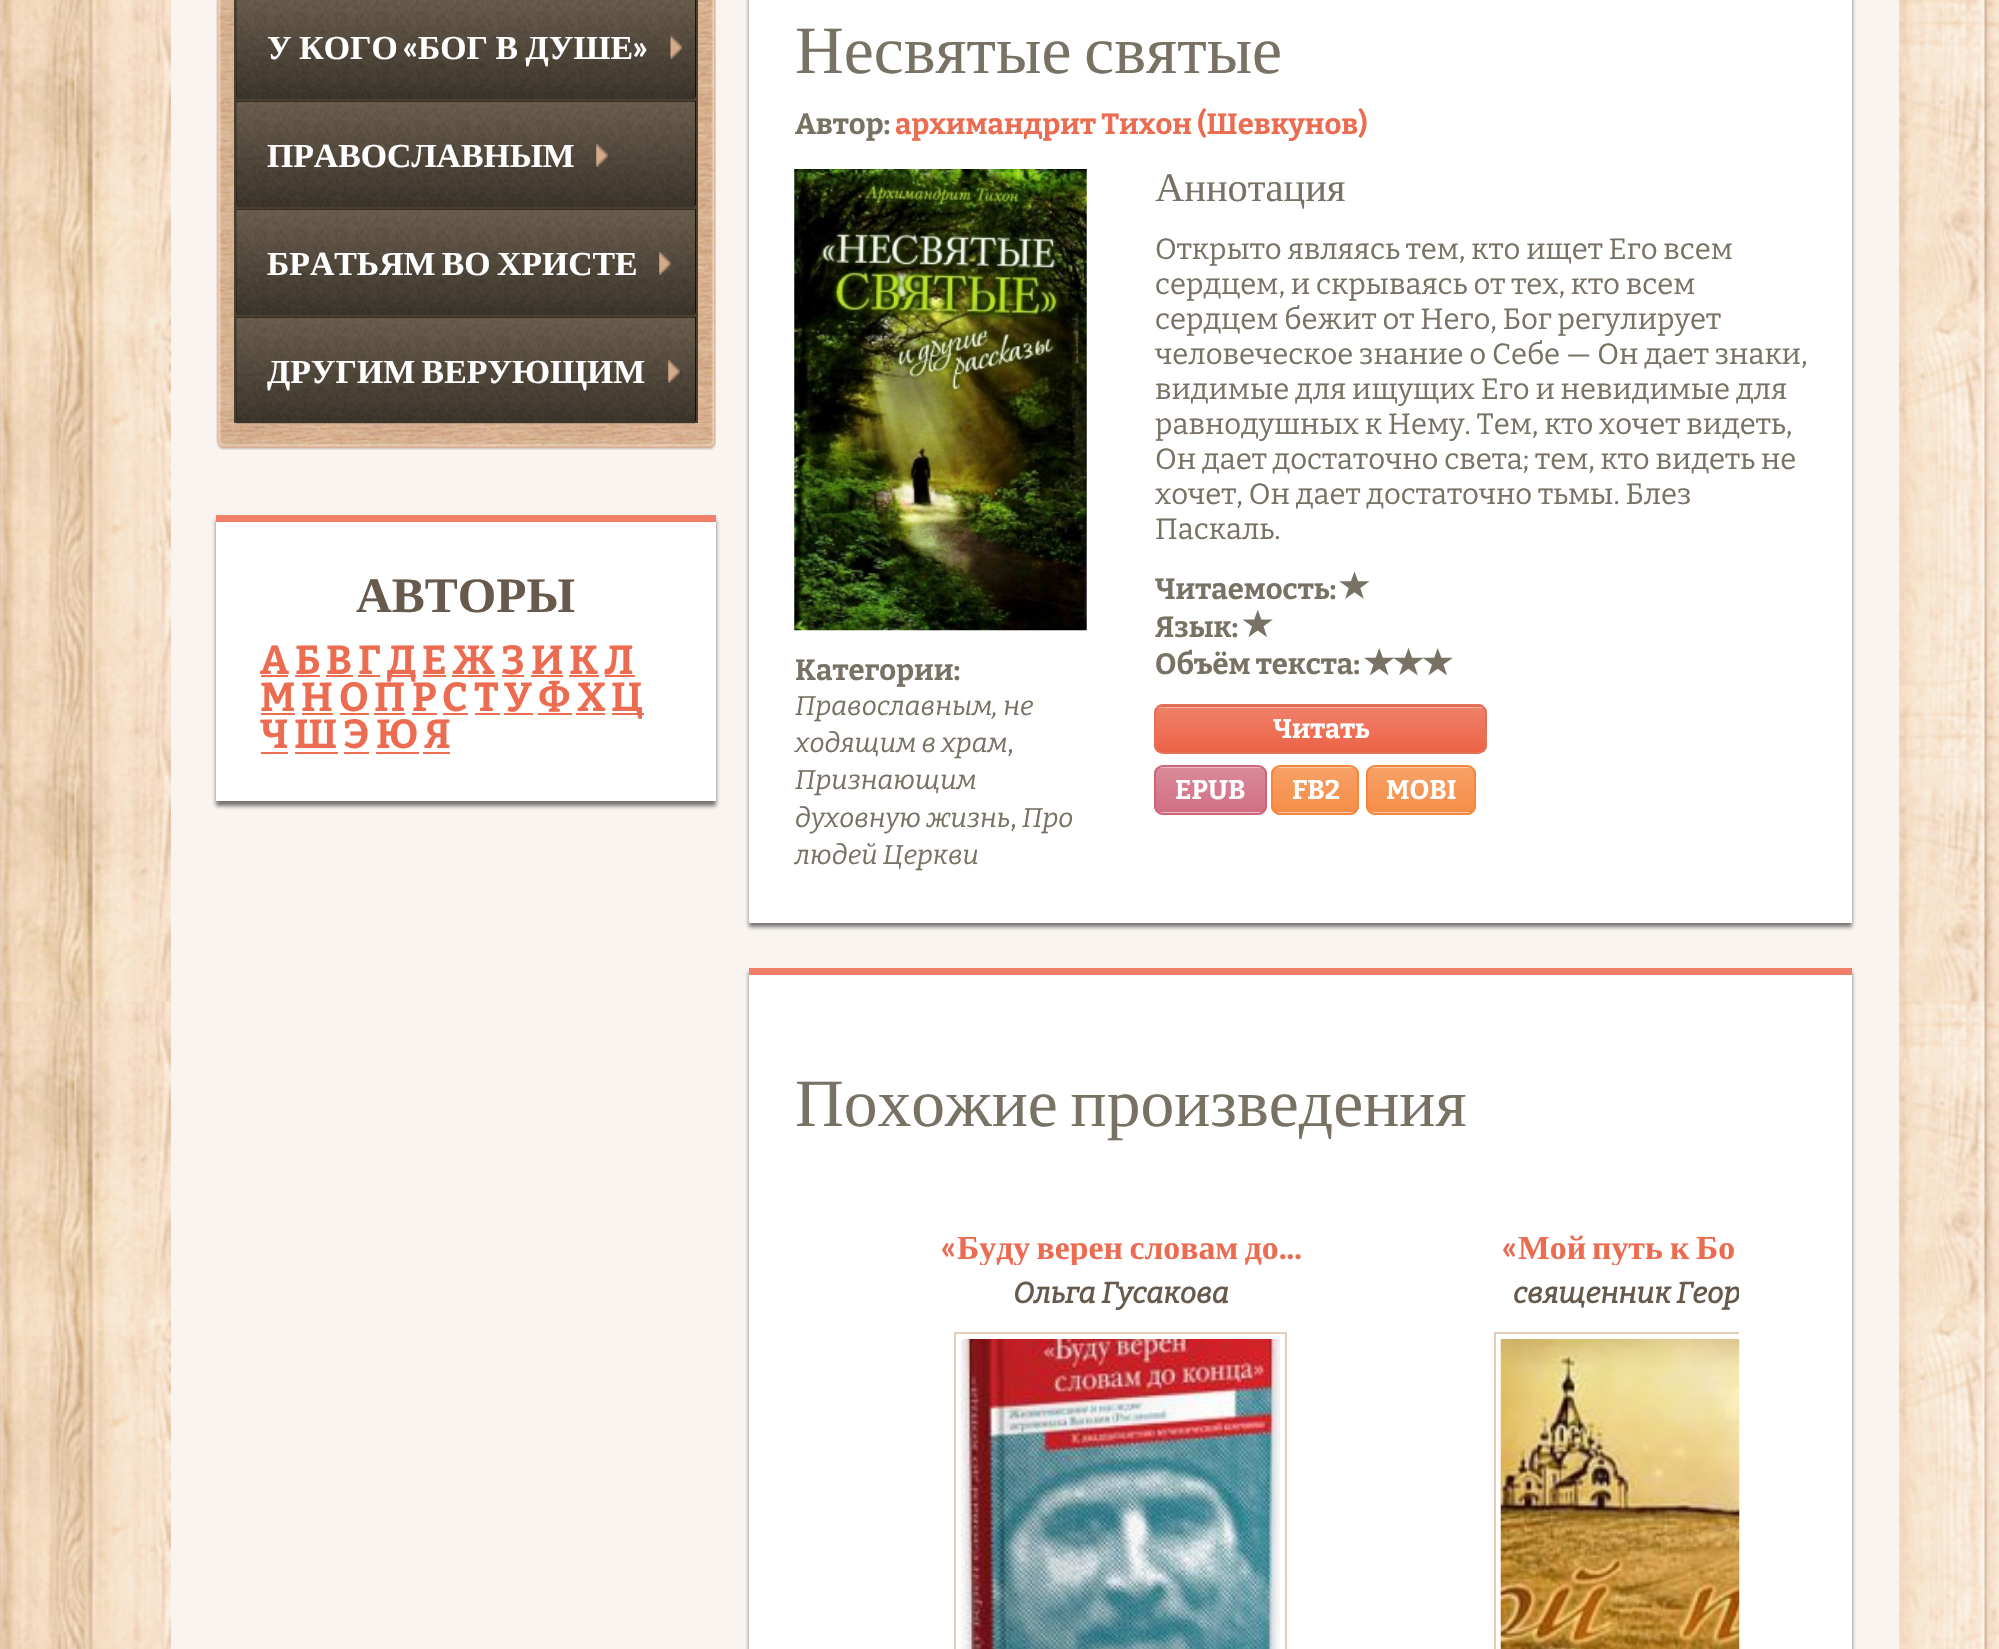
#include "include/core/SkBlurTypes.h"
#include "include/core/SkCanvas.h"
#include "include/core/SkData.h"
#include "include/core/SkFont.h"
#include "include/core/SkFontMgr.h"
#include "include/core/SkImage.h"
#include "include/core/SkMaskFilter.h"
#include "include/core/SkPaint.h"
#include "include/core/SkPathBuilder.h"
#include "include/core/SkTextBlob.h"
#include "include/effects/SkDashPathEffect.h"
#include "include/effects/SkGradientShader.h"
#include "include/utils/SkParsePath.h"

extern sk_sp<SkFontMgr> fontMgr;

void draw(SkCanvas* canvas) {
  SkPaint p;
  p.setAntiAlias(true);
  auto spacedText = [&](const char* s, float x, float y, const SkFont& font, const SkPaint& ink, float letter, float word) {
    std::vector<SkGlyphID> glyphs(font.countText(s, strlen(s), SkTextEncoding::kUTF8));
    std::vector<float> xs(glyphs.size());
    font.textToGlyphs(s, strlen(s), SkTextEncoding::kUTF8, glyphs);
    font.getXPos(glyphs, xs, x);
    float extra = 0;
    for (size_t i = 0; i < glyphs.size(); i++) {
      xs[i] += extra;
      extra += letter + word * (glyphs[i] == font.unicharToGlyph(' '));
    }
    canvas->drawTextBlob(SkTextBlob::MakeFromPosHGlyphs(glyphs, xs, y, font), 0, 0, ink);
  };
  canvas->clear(SK_ColorWHITE);
  canvas->drawImageRect(SkImages::DeferredFromEncodedData(SkData::MakeFromFileName("images/1.png")), SkRect::MakeLTRB(0, 0, 1999, 1649), SkSamplingOptions());
  p.setColor(SkColorSetRGB(249, 244, 240));
  canvas->drawRect(SkRect::MakeLTRB(171, 0, 1899, 1649), p);
  canvas->drawImageRect(SkImages::DeferredFromEncodedData(SkData::MakeFromFileName("images/2.png")), SkRect::MakeLTRB(216, 0, 716, 424), SkSamplingOptions());
  p.setColor(SK_ColorBLACK);
  canvas->drawRect(SkRect::MakeLTRB(235, -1, 697, 98), p);
  p.setStyle(SkPaint::kStroke_Style);
  p.setStrokeWidth(2);
  p.setColor(SkColorSetRGB(77, 61, 45));
  canvas->drawRect(SkRect::MakeLTRB(235, -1, 697, 98), p);
  canvas->drawImageRect(SkImages::DeferredFromEncodedData(SkData::MakeFromFileName("images/3.png")), SkRect::MakeLTRB(236, 0, 696, 99), SkSamplingOptions());
  canvas->drawImageRect(SkImages::DeferredFromEncodedData(SkData::MakeFromFileName("images/4.png")), SkRect::MakeLTRB(670, 36, 682, 59), SkSamplingOptions());
  p.setStyle(SkPaint::kFill_Style);
  p.setColor(SK_ColorBLACK);
  canvas->drawRect(SkRect::MakeLTRB(235, 100, 697, 206), p);
  p.setStyle(SkPaint::kStroke_Style);
  p.setColor(SkColorSetRGB(77, 61, 45));
  canvas->drawRect(SkRect::MakeLTRB(235, 100, 697, 206), p);
  canvas->drawImageRect(SkImages::DeferredFromEncodedData(SkData::MakeFromFileName("images/5.png")), SkRect::MakeLTRB(236, 101, 696, 207), SkSamplingOptions());
  canvas->drawImageRect(SkImages::DeferredFromEncodedData(SkData::MakeFromFileName("images/6.png")), SkRect::MakeLTRB(596, 144, 608, 167), SkSamplingOptions());
  p.setStyle(SkPaint::kFill_Style);
  p.setColor(SK_ColorBLACK);
  canvas->drawRect(SkRect::MakeLTRB(235, 208, 697, 314), p);
  p.setStyle(SkPaint::kStroke_Style);
  p.setColor(SkColorSetRGB(77, 61, 45));
  canvas->drawRect(SkRect::MakeLTRB(235, 208, 697, 314), p);
  canvas->drawImageRect(SkImages::DeferredFromEncodedData(SkData::MakeFromFileName("images/7.png")), SkRect::MakeLTRB(236, 209, 696, 315), SkSamplingOptions());
  canvas->drawImageRect(SkImages::DeferredFromEncodedData(SkData::MakeFromFileName("images/8.png")), SkRect::MakeLTRB(659, 252, 671, 275), SkSamplingOptions());
  p.setStyle(SkPaint::kFill_Style);
  p.setColor(SK_ColorBLACK);
  canvas->drawRect(SkRect::MakeLTRB(235, 316, 697, 422), p);
  p.setStyle(SkPaint::kStroke_Style);
  p.setColor(SkColorSetRGB(77, 61, 45));
  canvas->drawRect(SkRect::MakeLTRB(235, 316, 697, 422), p);
  canvas->drawImageRect(SkImages::DeferredFromEncodedData(SkData::MakeFromFileName("images/11.png")), SkRect::MakeLTRB(216, 423, 716, 450), SkSamplingOptions());
  canvas->drawImageRect(SkImages::DeferredFromEncodedData(SkData::MakeFromFileName("images/9.png")), SkRect::MakeLTRB(236, 317, 696, 424), SkSamplingOptions());
  canvas->drawImageRect(SkImages::DeferredFromEncodedData(SkData::MakeFromFileName("images/10.png")), SkRect::MakeLTRB(668, 360, 680, 383), SkSamplingOptions());
  p.setStyle(SkPaint::kFill_Style);
  p.setColor(SkColorSetARGB(168, 50, 50, 50));
  p.setMaskFilter(SkMaskFilter::MakeBlur(kNormal_SkBlurStyle, 2));
  canvas->drawRect(SkRect::MakeLTRB(216, 520, 716, 806), p);
  p.setMaskFilter(nullptr);
  p.setColor(SK_ColorWHITE);
  canvas->drawRect(SkRect::MakeLTRB(216, 522, 716, 801), p);
  p.setColor(SkColorSetRGB(239, 127, 105));
  canvas->drawRect(SkRect::MakeLTRB(216, 515, 716, 522), p);
  p.setColor(SkColorSetRGB(236, 108, 81));
  canvas->drawRect(SkRect::MakeLTRB(261, 675, 288, 677), p);
  canvas->drawRect(SkRect::MakeLTRB(295, 675, 320, 677), p);
  canvas->drawRect(SkRect::MakeLTRB(326, 675, 353, 677), p);
  canvas->drawRect(SkRect::MakeLTRB(358, 675, 380, 677), p);
  canvas->drawRect(SkRect::MakeLTRB(387, 675, 416, 677), p);
  canvas->drawRect(SkRect::MakeLTRB(423, 675, 446, 677), p);
  canvas->drawRect(SkRect::MakeLTRB(452, 675, 495, 677), p);
  canvas->drawRect(SkRect::MakeLTRB(502, 675, 524, 677), p);
  canvas->drawRect(SkRect::MakeLTRB(531, 675, 563, 677), p);
  canvas->drawRect(SkRect::MakeLTRB(569, 675, 599, 677), p);
  canvas->drawRect(SkRect::MakeLTRB(605, 675, 635, 677), p);
  canvas->drawRect(SkRect::MakeLTRB(261, 713, 295, 715), p);
  canvas->drawRect(SkRect::MakeLTRB(302, 713, 333, 715), p);
  canvas->drawRect(SkRect::MakeLTRB(340, 713, 369, 715), p);
  canvas->drawRect(SkRect::MakeLTRB(374, 713, 405, 715), p);
  canvas->drawRect(SkRect::MakeLTRB(412, 713, 437, 715), p);
  canvas->drawRect(SkRect::MakeLTRB(443, 713, 468, 715), p);
  canvas->drawRect(SkRect::MakeLTRB(475, 713, 500, 715), p);
  canvas->drawRect(SkRect::MakeLTRB(504, 713, 533, 715), p);
  canvas->drawRect(SkRect::MakeLTRB(538, 713, 572, 715), p);
  canvas->drawRect(SkRect::MakeLTRB(576, 713, 605, 715), p);
  canvas->drawRect(SkRect::MakeLTRB(612, 713, 644, 715), p);
  canvas->drawRect(SkRect::MakeLTRB(261, 752, 288, 754), p);
  canvas->drawRect(SkRect::MakeLTRB(295, 752, 338, 754), p);
  canvas->drawRect(SkRect::MakeLTRB(344, 752, 369, 754), p);
  canvas->drawRect(SkRect::MakeLTRB(376, 752, 419, 754), p);
  canvas->drawRect(SkRect::MakeLTRB(423, 752, 450, 754), p);
  p.setColor(SkColorSetARGB(168, 50, 50, 50));
  p.setMaskFilter(SkMaskFilter::MakeBlur(kNormal_SkBlurStyle, 2));
  canvas->drawRect(SkRect::MakeLTRB(749, -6, 1852, 927), p);
  p.setMaskFilter(nullptr);
  p.setColor(SK_ColorWHITE);
  canvas->drawRect(SkRect::MakeLTRB(749, 0, 1852, 923), p);
  canvas->drawImageRect(SkImages::DeferredFromEncodedData(SkData::MakeFromFileName("images/12.png")), SkRect::MakeLTRB(794, 169, 1087, 631), SkSamplingOptions());
  canvas->drawImageRect(SkImages::DeferredFromEncodedData(SkData::MakeFromFileName("images/13.png")), SkRect::MakeLTRB(1339, 571, 1370, 599), SkSamplingOptions());
  canvas->drawImageRect(SkImages::DeferredFromEncodedData(SkData::MakeFromFileName("images/14.png")), SkRect::MakeLTRB(1242, 609, 1273, 637), SkSamplingOptions());
  canvas->drawImageRect(SkImages::DeferredFromEncodedData(SkData::MakeFromFileName("images/15.png")), SkRect::MakeLTRB(1364, 648, 1395, 676), SkSamplingOptions());
  canvas->drawImageRect(SkImages::DeferredFromEncodedData(SkData::MakeFromFileName("images/16.png")), SkRect::MakeLTRB(1393, 648, 1424, 676), SkSamplingOptions());
  canvas->drawImageRect(SkImages::DeferredFromEncodedData(SkData::MakeFromFileName("images/17.png")), SkRect::MakeLTRB(1422, 648, 1453, 676), SkSamplingOptions());
  canvas->save();
  canvas->clipPath(SkPathBuilder().moveTo(1163, 704).lineTo(1478, 704).cubicTo(1483, 704, 1487, 708, 1487, 713).lineTo(1487, 745).cubicTo(1487, 750, 1483, 754, 1478, 754).lineTo(1163, 754).cubicTo(1158, 754, 1154, 750, 1154, 745).lineTo(1154, 713).cubicTo(1154, 708, 1158, 704, 1163, 704).close().detach(), true);
  {
    const SkColor colors[] = {SkColorSetRGB(250, 217, 210), SkColorSetRGB(239, 127, 105), SkColorSetRGB(236, 99, 70)};
    const float stops[] = {0, 0.03f, 1};
    const SkPoint ends[] = {{1321, 662}, {1321, 707}};
    p.setShader(SkGradientShader::MakeLinear(ends, colors, stops, 3, SkTileMode::kClamp));
    p.setAlpha(255);
  }
  canvas->drawRect(SkRect::MakeLTRB(1154, 704, 1487, 707), p);
  {
    const SkColor colors[] = {SkColorSetRGB(250, 217, 210), SkColorSetRGB(239, 127, 105), SkColorSetRGB(236, 99, 70)};
    const float stops[] = {0, 0.03f, 1};
    const SkPoint ends[] = {{1321, 707}, {1321, 752}};
    p.setShader(SkGradientShader::MakeLinear(ends, colors, stops, 3, SkTileMode::kClamp));
    p.setAlpha(255);
  }
  canvas->drawRect(SkRect::MakeLTRB(1154, 707, 1487, 752), p);
  canvas->restore();
  p.setStyle(SkPaint::kStroke_Style);
  p.setShader(nullptr);
  p.setColor(SkColorSetRGB(226, 113, 87));
  canvas->drawRoundRect(SkRect::MakeLTRB(1155, 705, 1486, 753), 8, 8, p);
  canvas->save();
  canvas->clipPath(SkPathBuilder().moveTo(1163, 765).lineTo(1258, 765).cubicTo(1263, 765, 1267, 769, 1267, 774).lineTo(1267, 806).cubicTo(1267, 811, 1263, 815, 1258, 815).lineTo(1163, 815).cubicTo(1158, 815, 1154, 811, 1154, 806).lineTo(1154, 774).cubicTo(1154, 769, 1158, 765, 1163, 765).close().detach(), true);
  p.setStyle(SkPaint::kFill_Style);
  {
    const SkColor colors[] = {SkColorSetRGB(244, 220, 225), SkColorSetRGB(217, 137, 153), SkColorSetRGB(209, 111, 131)};
    const float stops[] = {0, 0.03f, 1};
    const SkPoint ends[] = {{1211, 767}, {1211, 812}};
    p.setShader(SkGradientShader::MakeLinear(ends, colors, stops, 3, SkTileMode::kClamp));
    p.setAlpha(255);
  }
  canvas->drawRect(SkRect::MakeLTRB(1154, 767, 1267, 812), p);
  {
    const SkColor colors[] = {SkColorSetRGB(244, 220, 225), SkColorSetRGB(217, 137, 153), SkColorSetRGB(209, 111, 131)};
    const float stops[] = {0, 0.03f, 1};
    const SkPoint ends[] = {{1211, 812}, {1211, 857}};
    p.setShader(SkGradientShader::MakeLinear(ends, colors, stops, 3, SkTileMode::kClamp));
    p.setAlpha(255);
  }
  canvas->drawRect(SkRect::MakeLTRB(1154, 812, 1267, 815), p);
  canvas->restore();
  p.setStyle(SkPaint::kStroke_Style);
  p.setShader(nullptr);
  p.setColor(SkColorSetRGB(206, 101, 122));
  canvas->drawRoundRect(SkRect::MakeLTRB(1155, 766, 1266, 814), 8, 8, p);
  canvas->save();
  canvas->clipPath(SkPathBuilder().moveTo(1280, 765).lineTo(1350, 765).cubicTo(1355, 765, 1359, 769, 1359, 774).lineTo(1359, 806).cubicTo(1359, 811, 1355, 815, 1350, 815).lineTo(1280, 815).cubicTo(1275, 815, 1271, 811, 1271, 806).lineTo(1271, 774).cubicTo(1271, 769, 1275, 765, 1280, 765).close().detach(), true);
  p.setStyle(SkPaint::kFill_Style);
  {
    const SkColor colors[] = {SkColorSetRGB(253, 227, 210), SkColorSetRGB(247, 160, 102), SkColorSetRGB(245, 142, 72)};
    const float stops[] = {0, 0.03f, 1};
    const SkPoint ends[] = {{1315, 767}, {1315, 812}};
    p.setShader(SkGradientShader::MakeLinear(ends, colors, stops, 3, SkTileMode::kClamp));
    p.setAlpha(255);
  }
  canvas->drawRect(SkRect::MakeLTRB(1271, 767, 1359, 812), p);
  {
    const SkColor colors[] = {SkColorSetRGB(253, 227, 210), SkColorSetRGB(247, 160, 102), SkColorSetRGB(245, 142, 72)};
    const float stops[] = {0, 0.03f, 1};
    const SkPoint ends[] = {{1315, 812}, {1315, 857}};
    p.setShader(SkGradientShader::MakeLinear(ends, colors, stops, 3, SkTileMode::kClamp));
    p.setAlpha(255);
  }
  canvas->drawRect(SkRect::MakeLTRB(1271, 812, 1359, 815), p);
  canvas->restore();
  p.setStyle(SkPaint::kStroke_Style);
  p.setShader(nullptr);
  p.setColor(SkColorSetRGB(245, 135, 61));
  canvas->drawRoundRect(SkRect::MakeLTRB(1272, 766, 1358, 814), 8, 8, p);
  canvas->save();
  canvas->clipPath(SkPathBuilder().moveTo(1375, 765).lineTo(1467, 765).cubicTo(1472, 765, 1476, 769, 1476, 774).lineTo(1476, 806).cubicTo(1476, 811, 1472, 815, 1467, 815).lineTo(1375, 815).cubicTo(1370, 815, 1366, 811, 1366, 806).lineTo(1366, 774).cubicTo(1366, 769, 1370, 765, 1375, 765).close().detach(), true);
  p.setStyle(SkPaint::kFill_Style);
  {
    const SkColor colors[] = {SkColorSetRGB(253, 227, 210), SkColorSetRGB(247, 160, 102), SkColorSetRGB(245, 142, 72)};
    const float stops[] = {0, 0.03f, 1};
    const SkPoint ends[] = {{1421, 767}, {1421, 812}};
    p.setShader(SkGradientShader::MakeLinear(ends, colors, stops, 3, SkTileMode::kClamp));
    p.setAlpha(255);
  }
  canvas->drawRect(SkRect::MakeLTRB(1366, 767, 1476, 812), p);
  {
    const SkColor colors[] = {SkColorSetRGB(253, 227, 210), SkColorSetRGB(247, 160, 102), SkColorSetRGB(245, 142, 72)};
    const float stops[] = {0, 0.03f, 1};
    const SkPoint ends[] = {{1421, 812}, {1421, 857}};
    p.setShader(SkGradientShader::MakeLinear(ends, colors, stops, 3, SkTileMode::kClamp));
    p.setAlpha(255);
  }
  canvas->drawRect(SkRect::MakeLTRB(1366, 812, 1476, 815), p);
  canvas->restore();
  p.setStyle(SkPaint::kStroke_Style);
  p.setShader(nullptr);
  p.setColor(SkColorSetRGB(245, 135, 61));
  canvas->drawRoundRect(SkRect::MakeLTRB(1367, 766, 1475, 814), 8, 8, p);
  p.setStyle(SkPaint::kFill_Style);
  p.setColor(SkColorSetARGB(168, 50, 50, 50));
  p.setMaskFilter(SkMaskFilter::MakeBlur(kNormal_SkBlurStyle, 2));
  canvas->drawRect(SkRect::MakeLTRB(749, 972, 1852, 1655), p);
  p.setMaskFilter(nullptr);
  p.setColor(SK_ColorWHITE);
  canvas->drawRect(SkRect::MakeLTRB(749, 975, 1852, 1649), p);
  p.setColor(SkColorSetRGB(239, 127, 105));
  canvas->drawRect(SkRect::MakeLTRB(749, 968, 1852, 975), p);
  p.setStyle(SkPaint::kStroke_Style);
  p.setColor(SkColorSetRGB(227, 206, 185));
  canvas->drawRect(SkRect::MakeLTRB(955, 1333, 1286, 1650), p);
  canvas->drawImageRect(SkImages::DeferredFromEncodedData(SkData::MakeFromFileName("images/18.png")), SkRect::MakeLTRB(960, 1339, 1281, 1649), SkSamplingOptions());
  canvas->save();
  canvas->clipRect(SkRect::MakeLTRB(862, 1161, 1739, 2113));
  canvas->drawRect(SkRect::MakeLTRB(1495, 1333, 1826, 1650), p);
  canvas->restore();
  canvas->drawImageRect(SkImages::DeferredFromEncodedData(SkData::MakeFromFileName("images/19.png")), SkRect::MakeLTRB(1500, 1339, 1740, 1649), SkSamplingOptions());
  SkFont font1(fontMgr->matchFamilyStyle("Liberation Serif", SkFontStyle::Bold()), 33.75f);
  font1.setSubpixel(true);
  p.setStyle(SkPaint::kFill_Style);
  p.setColor(SK_ColorWHITE);
  spacedText("У КОГО", 267, 59, font1, p, 0, -1);
  SkFont font2(fontMgr->matchFamilyStyle("Lato", SkFontStyle::Bold()), 33.75f);
  font2.setSubpixel(true);
  canvas->drawString("«", 402, 59, font2, p);
  spacedText("БОГ В ДУШЕ", 418, 59, font1, p, 0, -1);
  canvas->drawString("»", 632, 59, font2, p);
  canvas->drawString("ПРАВОСЛАВНЫМ", 267, 167, font1, p);
  spacedText("БРАТЬЯМ ВО ХРИСТЕ", 267, 275, font1, p, 0, -2);
  spacedText("ДРУГИМ ВЕРУЮЩИМ", 267, 383, font1, p, 0, -2);
  SkFont font3(fontMgr->matchFamilyStyle("Liberation Serif", SkFontStyle::Bold()), 49.5f);
  font3.setSubpixel(true);
  p.setColor(SkColorSetRGB(103, 90, 76));
  canvas->drawString("АВТОРЫ", 356, 612, font3, p);
  SkFont font4(fontMgr->matchFamilyStyle("Bitter", SkFontStyle::Bold()), 40.5f);
  font4.setSubpixel(true);
  p.setColor(SkColorSetRGB(236, 108, 81));
  canvas->drawString("А", 260, 674, font4, p);
  canvas->drawString("Б", 295, 674, font4, p);
  canvas->drawString("В", 326, 674, font4, p);
  canvas->drawString("Г", 358, 674, font4, p);
  canvas->drawString("Д", 387, 674, font4, p);
  canvas->drawString("Е", 422, 674, font4, p);
  canvas->drawString("Ж", 452, 674, font4, p);
  canvas->drawString("З", 501, 674, font4, p);
  canvas->drawString("И", 531, 674, font4, p);
  canvas->drawString("К", 569, 674, font4, p);
  canvas->drawString("Л", 604, 674, font4, p);
  canvas->drawString("М", 260, 711, font4, p);
  canvas->drawString("Н", 301, 711, font4, p);
  canvas->drawString("О", 339, 711, font4, p);
  canvas->drawString("П", 374, 711, font4, p);
  canvas->drawString("Р", 412, 711, font4, p);
  canvas->drawString("С", 442, 711, font4, p);
  canvas->drawString("Т", 474, 711, font4, p);
  canvas->drawString("У", 504, 711, font4, p);
  canvas->drawString("Ф", 538, 711, font4, p);
  canvas->drawString("Х", 577, 711, font4, p);
  canvas->drawString("Ц", 611, 711, font4, p);
  canvas->drawString("Ч", 260, 748, font4, p);
  canvas->drawString("Ш", 294, 748, font4, p);
  canvas->drawString("Э", 343, 748, font4, p);
  canvas->drawString("Ю", 376, 748, font4, p);
  canvas->drawString("Я", 424, 748, font4, p);
  SkFont font5(fontMgr->matchFamilyStyle("Liberation Serif", SkFontStyle::Normal()), 67.5f);
  font5.setSubpixel(true);
  p.setColor(SkColorSetRGB(120, 114, 101));
  spacedText("Несвятые святые", 795, 73, font5, p, 0, -4);
  SkFont font6(fontMgr->matchFamilyStyle("Bitter", SkFontStyle::Bold()), 29.25f);
  font6.setSubpixel(true);
  canvas->drawString("Автор:", 795, 134, font6, p);
  p.setColor(SkColorSetRGB(236, 108, 81));
  canvas->drawString("архимандрит Тихон (Шевкунов)", 895, 134, font6, p);
  p.setColor(SkColorSetRGB(120, 114, 101));
  canvas->drawString("Категории:", 795, 680, font6, p);
  SkFont font7(fontMgr->matchFamilyStyle("Bitter", SkFontStyle(100, SkFontStyle::kNormal_Width, SkFontStyle::kItalic_Slant)), 27);
  font7.setSubpixel(true);
  canvas->drawString("Православным, не", 795, 715, font7, p);
  canvas->drawString("ходящим в храм", 795, 752, font7, p);
  SkFont font8(fontMgr->matchFamilyStyle("Bitter", SkFontStyle::Normal()), 29.25f);
  font8.setSubpixel(true);
  canvas->drawString(",", 1007, 752, font8, p);
  canvas->drawString("Признающим", 795, 789, font7, p);
  canvas->drawString("духовную жизнь", 795, 827, font7, p);
  canvas->drawString(",", 1010, 827, font8, p);
  canvas->drawString("Про", 1022, 827, font7, p);
  canvas->drawString("людей Церкви", 795, 864, font7, p);
  SkFont font9(fontMgr->matchFamilyStyle("Liberation Serif", SkFontStyle::Normal()), 40.5f);
  font9.setSubpixel(true);
  canvas->drawString("Аннотация", 1155, 201, font9, p);
  canvas->drawString("Открыто являясь тем, кто ищет Его всем", 1155, 259, font8, p);
  canvas->drawString("сердцем, и скрываясь от тех, кто всем", 1155, 294, font8, p);
  canvas->drawString("сердцем бежит от Него, Бог регулирует", 1155, 329, font8, p);
  canvas->drawString("человеческое знание о Себе — Он дает знаки,", 1155, 364, font8, p);
  canvas->drawString("видимые для ищущих Его и невидимые для", 1155, 399, font8, p);
  canvas->drawString("равнодушных к Нему. Тем, кто хочет видеть,", 1155, 434, font8, p);
  canvas->drawString("Он дает достаточно света; тем, кто видеть не", 1155, 469, font8, p);
  canvas->drawString("хочет, Он дает достаточно тьмы. Блез", 1155, 504, font8, p);
  canvas->drawString("Паскаль.", 1155, 539, font8, p);
  canvas->drawString("Читаемость:", 1155, 599, font6, p);
  canvas->drawString("Язык:", 1155, 637, font6, p);
  canvas->drawString("Объём текста:", 1155, 674, font6, p);
  SkFont font10(fontMgr->matchFamilyStyle("Bitter", SkFontStyle::Bold()), 27);
  font10.setSubpixel(true);
  p.setColor(SK_ColorWHITE);
  canvas->drawString("Читать", 1273, 738, font10, p);
  canvas->drawString("EPUB", 1175, 799, font10, p);
  canvas->drawString("FB2", 1292, 799, font10, p);
  canvas->drawString("MOBI", 1386, 799, font10, p);
  p.setColor(SkColorSetRGB(120, 114, 101));
  spacedText("Похожие произведения", 795, 1126, font5, p, 0, -4);
  p.setColor(SkColorSetRGB(236, 108, 81));
  canvas->drawString("«", 940, 1259, font2, p);
  canvas->save();
  canvas->clipRect(SkRect::MakeLTRB(884, 1229, 1357, 1265));
  spacedText("Буду верен словам до", 957, 1259, font1, p, 0, -2);
  canvas->restore();
  canvas->drawString("...", 1279, 1259, font2, p);
  SkFont font11(fontMgr->matchFamilyStyle("Bitter", SkFontStyle::BoldItalic()), 29.25f);
  font11.setSubpixel(true);
  p.setColor(SkColorSetRGB(103, 90, 76));
  canvas->drawString("Ольга Гусакова", 1013, 1303, font11, p);
  p.setColor(SkColorSetRGB(236, 108, 81));
  canvas->drawString("«", 1501, 1259, font2, p);
  canvas->drawString("Мой", 1518, 1259, font1, p);
  canvas->save();
  canvas->clipRect(SkRect::MakeLTRB(1424, 1229, 1739, 1265));
  canvas->drawString("путь", 1592, 1259, font1, p);
  canvas->restore();
  canvas->drawString("к", 1670, 1259, font1, p);
  canvas->drawString("Бо", 1696, 1259, font1, p);
  canvas->save();
  canvas->clipRect(SkRect::MakeLTRB(1424, 1276, 1739, 1321));
  p.setColor(SkColorSetRGB(103, 90, 76));
  canvas->drawString("священник Геор", 1513, 1303, font11, p);
  canvas->restore();
}
